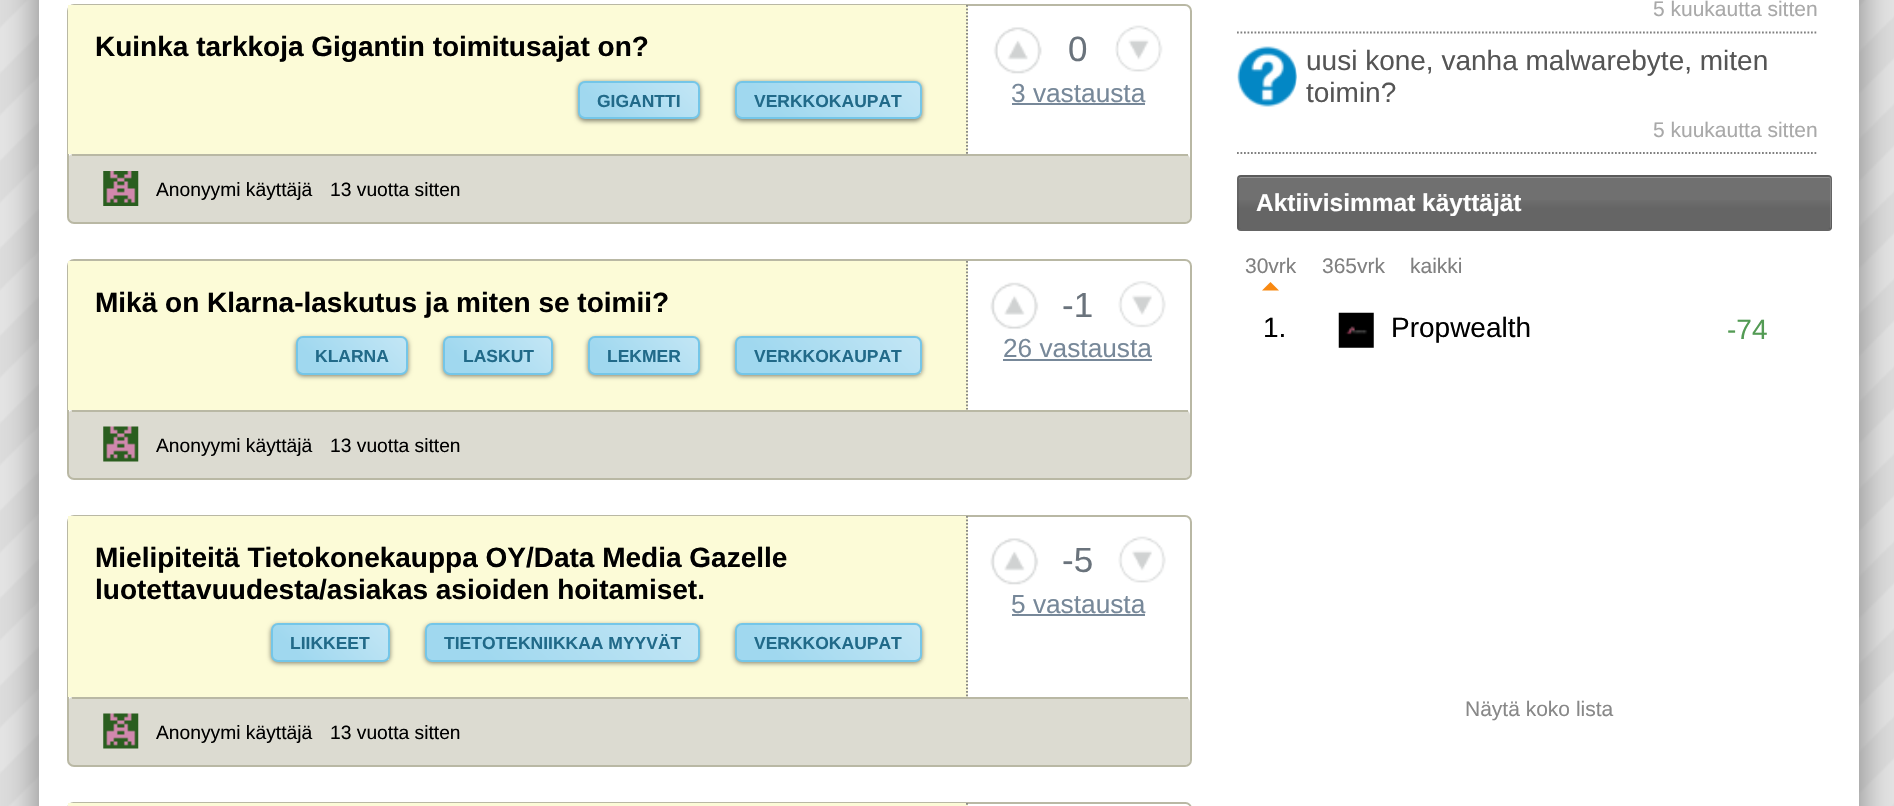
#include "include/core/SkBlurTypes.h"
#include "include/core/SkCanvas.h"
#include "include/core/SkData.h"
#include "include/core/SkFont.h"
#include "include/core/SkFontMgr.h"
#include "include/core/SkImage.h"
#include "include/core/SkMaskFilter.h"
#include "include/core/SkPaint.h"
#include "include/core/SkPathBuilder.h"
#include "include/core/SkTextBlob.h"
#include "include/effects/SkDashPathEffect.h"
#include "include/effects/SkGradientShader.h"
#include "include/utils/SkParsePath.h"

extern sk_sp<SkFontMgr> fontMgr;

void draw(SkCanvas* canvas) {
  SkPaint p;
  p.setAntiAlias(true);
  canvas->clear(SkColorSetRGB(221, 221, 221));
  canvas->drawImageRect(SkImages::DeferredFromEncodedData(SkData::MakeFromFileName("images/1.png")), SkRect::MakeLTRB(0, 0, 1894, 806), SkSamplingOptions());
  p.setColor(SkColorSetRGB(128, 128, 128));
  p.setMaskFilter(SkMaskFilter::MakeBlur(kNormal_SkBlurStyle, 17.5f));
  canvas->drawRect(SkRect::MakeLTRB(39, -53, 1859, 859), p);
  p.setMaskFilter(nullptr);
  p.setColor(SK_ColorWHITE);
  canvas->drawRect(SkRect::MakeLTRB(39, 0, 1859, 806), p);
  p.setStyle(SkPaint::kStroke_Style);
  p.setStrokeWidth(2);
  p.setColor(SkColorSetRGB(185, 184, 164));
  canvas->drawRoundRect(SkRect::MakeLTRB(68, 5, 1191, 223), 6, 6, p);
  p.setStyle(SkPaint::kFill_Style);
  p.setColor(SkColorSetRGB(252, 251, 215));
  canvas->drawRect(SkRect::MakeLTRB(68, 5, 968, 154), p);
  p.setStyle(SkPaint::kStroke_Style);
  p.setStrokeWidth(1.8f);
  p.setColor(SkColorSetRGB(128, 128, 128));
  p.setPathEffect(SkDashPathEffect::Make({{1.75f, 1.75f}}, 0));
  canvas->drawPath(SkPathBuilder().moveTo(967, 5).lineTo(967, 154).detach(), p);
  p.setPathEffect(nullptr);
  p.setStyle(SkPaint::kFill_Style);
  p.setColor(SkColorSetARGB(128, 0, 0, 0));
  p.setMaskFilter(SkMaskFilter::MakeBlur(kNormal_SkBlurStyle, 2.5f));
  canvas->drawRoundRect(SkRect::MakeLTRB(578, 82, 700, 121), 7, 7, p);
  p.setMaskFilter(nullptr);
  canvas->save();
  canvas->clipPath(SkPathBuilder().moveTo(585, 81).lineTo(693, 81).cubicTo(697, 81, 700, 84, 700, 88).lineTo(700, 112).cubicTo(700, 116, 697, 119, 693, 119).lineTo(585, 119).cubicTo(581, 119, 578, 116, 578, 112).lineTo(578, 88).cubicTo(578, 84, 581, 81, 585, 81).close().detach(), true);
  {
    const SkColor colors[] = {SkColorSetRGB(160, 216, 239), SkColorSetRGB(195, 230, 245)};
    const float stops[] = {0.2f, 1};
    const SkPoint ends[] = {{600, 138}, {677, 61}};
    p.setShader(SkGradientShader::MakeLinear(ends, colors, stops, 2, SkTileMode::kClamp));
    p.setAlpha(255);
  }
  canvas->drawRect(SkRect::MakeLTRB(579, 82, 698, 117), p);
  canvas->restore();
  p.setStyle(SkPaint::kStroke_Style);
  p.setStrokeWidth(2);
  p.setShader(nullptr);
  p.setColor(SkColorSetRGB(116, 198, 232));
  canvas->drawRoundRect(SkRect::MakeLTRB(579, 82, 699, 118), 6, 6, p);
  p.setStyle(SkPaint::kFill_Style);
  p.setColor(SkColorSetARGB(128, 0, 0, 0));
  p.setMaskFilter(SkMaskFilter::MakeBlur(kNormal_SkBlurStyle, 2.5f));
  canvas->drawRoundRect(SkRect::MakeLTRB(735, 82, 922, 121), 7, 7, p);
  p.setMaskFilter(nullptr);
  canvas->save();
  canvas->clipPath(SkPathBuilder().moveTo(742, 81).lineTo(915, 81).cubicTo(919, 81, 922, 84, 922, 88).lineTo(922, 112).cubicTo(922, 116, 919, 119, 915, 119).lineTo(742, 119).cubicTo(738, 119, 735, 116, 735, 112).lineTo(735, 88).cubicTo(735, 84, 738, 81, 742, 81).close().detach(), true);
  {
    const SkColor colors[] = {SkColorSetRGB(160, 216, 239), SkColorSetRGB(195, 230, 245)};
    const float stops[] = {0.2f, 1};
    const SkPoint ends[] = {{774, 154}, {883, 45}};
    p.setShader(SkGradientShader::MakeLinear(ends, colors, stops, 2, SkTileMode::kClamp));
    p.setAlpha(255);
  }
  canvas->drawRect(SkRect::MakeLTRB(737, 82, 921, 117), p);
  canvas->restore();
  p.setStyle(SkPaint::kStroke_Style);
  p.setShader(nullptr);
  p.setColor(SkColorSetRGB(116, 198, 232));
  canvas->drawRoundRect(SkRect::MakeLTRB(736, 82, 921, 118), 6, 6, p);
  canvas->drawImageRect(SkImages::DeferredFromEncodedData(SkData::MakeFromFileName("images/2.png")), SkRect::MakeLTRB(993, 27, 1042, 74), SkSamplingOptions());
  canvas->drawImageRect(SkImages::DeferredFromEncodedData(SkData::MakeFromFileName("images/3.png")), SkRect::MakeLTRB(1115, 25, 1163, 72), SkSamplingOptions());
  p.setStyle(SkPaint::kFill_Style);
  p.setColor(SkColorSetRGB(119, 136, 153));
  canvas->drawRect(SkRect::MakeLTRB(1012, 103, 1145, 105), p);
  p.setColor(SkColorSetARGB(128, 185, 184, 164));
  canvas->drawRoundRect(SkRect::MakeLTRB(68, 154, 1190, 222), 5, 5, p);
  p.setColor(SkColorSetRGB(185, 184, 164));
  canvas->drawRect(SkRect::MakeLTRB(72, 154, 1188, 156), p);
  canvas->drawImageRect(SkImages::DeferredFromEncodedData(SkData::MakeFromFileName("images/4.png")), SkRect::MakeLTRB(103, 171, 139, 206), SkSamplingOptions());
  p.setStyle(SkPaint::kStroke_Style);
  canvas->drawRoundRect(SkRect::MakeLTRB(68, 260, 1191, 479), 6, 6, p);
  p.setStyle(SkPaint::kFill_Style);
  p.setColor(SkColorSetRGB(252, 251, 215));
  canvas->drawRect(SkRect::MakeLTRB(68, 261, 968, 410), p);
  p.setStyle(SkPaint::kStroke_Style);
  p.setStrokeWidth(1.8f);
  p.setColor(SkColorSetRGB(128, 128, 128));
  p.setPathEffect(SkDashPathEffect::Make({{1.75f, 1.75f}}, 0));
  canvas->drawPath(SkPathBuilder().moveTo(967, 261).lineTo(967, 409.5f).detach(), p);
  p.setPathEffect(nullptr);
  p.setStyle(SkPaint::kFill_Style);
  p.setColor(SkColorSetARGB(128, 0, 0, 0));
  p.setMaskFilter(SkMaskFilter::MakeBlur(kNormal_SkBlurStyle, 2.5f));
  canvas->drawRoundRect(SkRect::MakeLTRB(296, 338, 408, 376), 7, 7, p);
  p.setMaskFilter(nullptr);
  {
    const SkColor colors[] = {SkColorSetRGB(160, 216, 239), SkColorSetRGB(195, 230, 245)};
    const float stops[] = {0.2f, 1};
    const SkPoint ends[] = {{316, 391}, {388, 319}};
    p.setShader(SkGradientShader::MakeLinear(ends, colors, stops, 2, SkTileMode::kClamp));
    p.setAlpha(255);
  }
  canvas->drawRect(SkRect::MakeLTRB(298, 338, 406, 373), p);
  p.setStyle(SkPaint::kStroke_Style);
  p.setStrokeWidth(2);
  p.setShader(nullptr);
  p.setColor(SkColorSetRGB(116, 198, 232));
  canvas->drawRoundRect(SkRect::MakeLTRB(297, 337, 407, 374), 6, 6, p);
  p.setStyle(SkPaint::kFill_Style);
  p.setColor(SkColorSetARGB(128, 0, 0, 0));
  p.setMaskFilter(SkMaskFilter::MakeBlur(kNormal_SkBlurStyle, 2.5f));
  canvas->drawRoundRect(SkRect::MakeLTRB(443, 338, 553, 376), 7, 7, p);
  p.setMaskFilter(nullptr);
  {
    const SkColor colors[] = {SkColorSetRGB(160, 216, 239), SkColorSetRGB(195, 230, 245)};
    const float stops[] = {0.2f, 1};
    const SkPoint ends[] = {{462, 391}, {533, 320}};
    p.setShader(SkGradientShader::MakeLinear(ends, colors, stops, 2, SkTileMode::kClamp));
    p.setAlpha(255);
  }
  canvas->drawRect(SkRect::MakeLTRB(445, 338, 551, 373), p);
  p.setStyle(SkPaint::kStroke_Style);
  p.setShader(nullptr);
  p.setColor(SkColorSetRGB(116, 198, 232));
  canvas->drawRoundRect(SkRect::MakeLTRB(444, 337, 552, 374), 6, 6, p);
  p.setStyle(SkPaint::kFill_Style);
  p.setColor(SkColorSetARGB(128, 0, 0, 0));
  p.setMaskFilter(SkMaskFilter::MakeBlur(kNormal_SkBlurStyle, 2.5f));
  canvas->drawRoundRect(SkRect::MakeLTRB(588, 338, 700, 376), 7, 7, p);
  p.setMaskFilter(nullptr);
  {
    const SkColor colors[] = {SkColorSetRGB(160, 216, 239), SkColorSetRGB(195, 230, 245)};
    const float stops[] = {0.2f, 1};
    const SkPoint ends[] = {{608, 391}, {680, 319}};
    p.setShader(SkGradientShader::MakeLinear(ends, colors, stops, 2, SkTileMode::kClamp));
    p.setAlpha(255);
  }
  canvas->drawRect(SkRect::MakeLTRB(590, 338, 698, 373), p);
  p.setStyle(SkPaint::kStroke_Style);
  p.setShader(nullptr);
  p.setColor(SkColorSetRGB(116, 198, 232));
  canvas->drawRoundRect(SkRect::MakeLTRB(589, 337, 699, 374), 6, 6, p);
  p.setStyle(SkPaint::kFill_Style);
  p.setColor(SkColorSetARGB(128, 0, 0, 0));
  p.setMaskFilter(SkMaskFilter::MakeBlur(kNormal_SkBlurStyle, 2.5f));
  canvas->drawRoundRect(SkRect::MakeLTRB(735, 338, 922, 376), 7, 7, p);
  p.setMaskFilter(nullptr);
  {
    const SkColor colors[] = {SkColorSetRGB(160, 216, 239), SkColorSetRGB(195, 230, 245)};
    const float stops[] = {0.2f, 1};
    const SkPoint ends[] = {{774, 410}, {883, 301}};
    p.setShader(SkGradientShader::MakeLinear(ends, colors, stops, 2, SkTileMode::kClamp));
    p.setAlpha(255);
  }
  canvas->drawRect(SkRect::MakeLTRB(737, 338, 921, 373), p);
  p.setStyle(SkPaint::kStroke_Style);
  p.setShader(nullptr);
  p.setColor(SkColorSetRGB(116, 198, 232));
  canvas->drawRoundRect(SkRect::MakeLTRB(736, 337, 921, 374), 6, 6, p);
  canvas->drawImageRect(SkImages::DeferredFromEncodedData(SkData::MakeFromFileName("images/5.png")), SkRect::MakeLTRB(990, 282, 1039, 329), SkSamplingOptions());
  canvas->drawImageRect(SkImages::DeferredFromEncodedData(SkData::MakeFromFileName("images/6.png")), SkRect::MakeLTRB(1118, 281, 1166, 328), SkSamplingOptions());
  p.setStyle(SkPaint::kFill_Style);
  p.setColor(SkColorSetRGB(119, 136, 153));
  canvas->drawRect(SkRect::MakeLTRB(1003, 359, 1152, 361), p);
  p.setColor(SkColorSetARGB(128, 185, 184, 164));
  canvas->drawRoundRect(SkRect::MakeLTRB(68, 410, 1190, 478), 5, 5, p);
  p.setColor(SkColorSetRGB(185, 184, 164));
  canvas->drawRect(SkRect::MakeLTRB(72, 410, 1188, 412), p);
  canvas->drawImageRect(SkImages::DeferredFromEncodedData(SkData::MakeFromFileName("images/7.png")), SkRect::MakeLTRB(103, 426, 139, 462), SkSamplingOptions());
  p.setStyle(SkPaint::kStroke_Style);
  canvas->drawRoundRect(SkRect::MakeLTRB(68, 516, 1191, 766), 6, 6, p);
  p.setStyle(SkPaint::kFill_Style);
  p.setColor(SkColorSetRGB(252, 251, 215));
  canvas->drawRect(SkRect::MakeLTRB(68, 516, 968, 697), p);
  p.setStyle(SkPaint::kStroke_Style);
  p.setStrokeWidth(1.8f);
  p.setColor(SkColorSetRGB(128, 128, 128));
  p.setPathEffect(SkDashPathEffect::Make({{1.75f, 1.75f}}, 0));
  canvas->drawPath(SkPathBuilder().moveTo(967, 516).lineTo(967, 696.5f).detach(), p);
  p.setPathEffect(nullptr);
  p.setStyle(SkPaint::kFill_Style);
  p.setColor(SkColorSetARGB(128, 0, 0, 0));
  p.setMaskFilter(SkMaskFilter::MakeBlur(kNormal_SkBlurStyle, 2.5f));
  canvas->drawRoundRect(SkRect::MakeLTRB(271, 625, 390, 663), 7, 7, p);
  p.setMaskFilter(nullptr);
  {
    const SkColor colors[] = {SkColorSetRGB(160, 216, 239), SkColorSetRGB(195, 230, 245)};
    const float stops[] = {0.2f, 1};
    const SkPoint ends[] = {{293, 680}, {368, 605}};
    p.setShader(SkGradientShader::MakeLinear(ends, colors, stops, 2, SkTileMode::kClamp));
    p.setAlpha(255);
  }
  canvas->drawRect(SkRect::MakeLTRB(273, 625, 389, 660), p);
  p.setStyle(SkPaint::kStroke_Style);
  p.setStrokeWidth(2);
  p.setShader(nullptr);
  p.setColor(SkColorSetRGB(116, 198, 232));
  canvas->drawRoundRect(SkRect::MakeLTRB(272, 624, 389, 661), 6, 6, p);
  p.setStyle(SkPaint::kFill_Style);
  p.setColor(SkColorSetARGB(128, 0, 0, 0));
  p.setMaskFilter(SkMaskFilter::MakeBlur(kNormal_SkBlurStyle, 2.5f));
  canvas->drawRoundRect(SkRect::MakeLTRB(425, 625, 700, 663), 7, 7, p);
  p.setMaskFilter(nullptr);
  {
    const SkColor colors[] = {SkColorSetRGB(160, 216, 239), SkColorSetRGB(195, 230, 245)};
    const float stops[] = {0.2f, 1};
    const SkPoint ends[] = {{486, 719}, {639, 566}};
    p.setShader(SkGradientShader::MakeLinear(ends, colors, stops, 2, SkTileMode::kClamp));
    p.setAlpha(255);
  }
  canvas->drawRect(SkRect::MakeLTRB(427, 625, 698, 660), p);
  p.setStyle(SkPaint::kStroke_Style);
  p.setShader(nullptr);
  p.setColor(SkColorSetRGB(116, 198, 232));
  canvas->drawRoundRect(SkRect::MakeLTRB(426, 624, 699, 661), 6, 6, p);
  p.setStyle(SkPaint::kFill_Style);
  p.setColor(SkColorSetARGB(128, 0, 0, 0));
  p.setMaskFilter(SkMaskFilter::MakeBlur(kNormal_SkBlurStyle, 2.5f));
  canvas->drawRoundRect(SkRect::MakeLTRB(735, 625, 922, 663), 7, 7, p);
  p.setMaskFilter(nullptr);
  {
    const SkColor colors[] = {SkColorSetRGB(160, 216, 239), SkColorSetRGB(195, 230, 245)};
    const float stops[] = {0.2f, 1};
    const SkPoint ends[] = {{774, 697}, {883, 588}};
    p.setShader(SkGradientShader::MakeLinear(ends, colors, stops, 2, SkTileMode::kClamp));
    p.setAlpha(255);
  }
  canvas->drawRect(SkRect::MakeLTRB(737, 625, 921, 660), p);
  p.setStyle(SkPaint::kStroke_Style);
  p.setShader(nullptr);
  p.setColor(SkColorSetRGB(116, 198, 232));
  canvas->drawRoundRect(SkRect::MakeLTRB(736, 624, 921, 661), 6, 6, p);
  canvas->drawImageRect(SkImages::DeferredFromEncodedData(SkData::MakeFromFileName("images/8.png")), SkRect::MakeLTRB(990, 538, 1039, 585), SkSamplingOptions());
  canvas->drawImageRect(SkImages::DeferredFromEncodedData(SkData::MakeFromFileName("images/9.png")), SkRect::MakeLTRB(1118, 536, 1166, 583), SkSamplingOptions());
  p.setStyle(SkPaint::kFill_Style);
  p.setColor(SkColorSetRGB(119, 136, 153));
  canvas->drawRect(SkRect::MakeLTRB(1012, 614, 1145, 616), p);
  p.setColor(SkColorSetARGB(128, 185, 184, 164));
  canvas->drawRoundRect(SkRect::MakeLTRB(68, 697, 1190, 765), 5, 5, p);
  p.setColor(SkColorSetRGB(185, 184, 164));
  canvas->drawRect(SkRect::MakeLTRB(72, 697, 1188, 699), p);
  canvas->drawImageRect(SkImages::DeferredFromEncodedData(SkData::MakeFromFileName("images/7.png")), SkRect::MakeLTRB(103, 713, 139, 749), SkSamplingOptions());
  p.setStyle(SkPaint::kStroke_Style);
  canvas->drawRoundRect(SkRect::MakeLTRB(68, 803, 1191, 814), 6, 6, p);
  p.setStyle(SkPaint::kFill_Style);
  p.setColor(SkColorSetRGB(252, 251, 215));
  canvas->drawRect(SkRect::MakeLTRB(68, 803, 968, 806), p);
  p.setStyle(SkPaint::kStroke_Style);
  p.setStrokeWidth(1.8f);
  p.setColor(SkColorSetRGB(128, 128, 128));
  p.setPathEffect(SkDashPathEffect::Make({{1.75f, 1.75f}}, 0));
  canvas->drawPath(SkPathBuilder().moveTo(967, 803).lineTo(967, 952).detach(), p);
  p.setPathEffect(nullptr);
  p.setPathEffect(SkDashPathEffect::Make({{1.75f, 1.75f}}, 0));
  canvas->drawPath(SkPathBuilder().moveTo(1237, 32.5f).lineTo(1818, 32.5f).detach(), p);
  p.setPathEffect(nullptr);
  p.setPathEffect(SkDashPathEffect::Make({{1.75f, 1.75f}}, 0));
  canvas->drawPath(SkPathBuilder().moveTo(1237, 153).lineTo(1818, 153).detach(), p);
  p.setPathEffect(nullptr);
  canvas->drawImageRect(SkImages::DeferredFromEncodedData(SkData::MakeFromFileName("images/10.png")), SkRect::MakeLTRB(1237, 46, 1297, 107), SkSamplingOptions());
  p.setStyle(SkPaint::kFill_Style);
  p.setColor(SkColorSetRGB(112, 112, 112));
  canvas->drawRoundRect(SkRect::MakeLTRB(1237, 175, 1832, 231), 4, 4, p);
  canvas->save();
  canvas->clipPath(SkPathBuilder().moveTo(1241, 175).lineTo(1828, 175).cubicTo(1830, 175, 1832, 177, 1832, 179).lineTo(1832, 227).cubicTo(1832, 229, 1830, 231, 1828, 231).lineTo(1241, 231).cubicTo(1239, 231, 1237, 229, 1237, 227).lineTo(1237, 179).cubicTo(1237, 177, 1239, 175, 1241, 175).close().detach(), true);
  {
    const SkColor colors[] = {SkColorSetARGB(0, 0, 0, 0), SkColorSetARGB(0, 0, 0, 0), SkColorSetARGB(26, 0, 0, 0), SkColorSetARGB(26, 0, 0, 0)};
    const float stops[] = {0, 0.4f, 0.61f, 0.99f};
    const SkPoint ends[] = {{1535, 124}, {1535, 177}};
    p.setShader(SkGradientShader::MakeLinear(ends, colors, stops, 4, SkTileMode::kClamp));
    p.setAlpha(255);
  }
  canvas->drawRect(SkRect::MakeLTRB(1237, 175, 1832, 177), p);
  canvas->restore();
  {
    const SkColor colors[] = {SkColorSetARGB(0, 0, 0, 0), SkColorSetARGB(0, 0, 0, 0), SkColorSetARGB(26, 0, 0, 0), SkColorSetARGB(26, 0, 0, 0)};
    const float stops[] = {0, 0.4f, 0.61f, 0.99f};
    const SkPoint ends[] = {{1535, 177}, {1535, 229}};
    p.setShader(SkGradientShader::MakeLinear(ends, colors, stops, 4, SkTileMode::kClamp));
    p.setAlpha(255);
  }
  canvas->drawRect(SkRect::MakeLTRB(1237, 200, 1832, 229), p);
  p.setShader(nullptr);
  p.setColor(SkColorSetARGB(64, 255, 255, 255));
  canvas->drawPath(SkPathBuilder().moveTo(1241, 178).lineTo(1829, 178).cubicTo(1830, 178, 1830, 179, 1830, 180).lineTo(1830, 229).lineTo(1831, 227).lineTo(1831, 179).cubicTo(1831, 178, 1830, 177, 1829, 177).lineTo(1241, 177).cubicTo(1239, 177, 1239, 179, 1239, 180).cubicTo(1239, 179, 1240, 178, 1241, 178).close().detach(), p);
  p.setStyle(SkPaint::kStroke_Style);
  p.setStrokeWidth(2);
  p.setColor(SkColorSetARGB(26, 0, 0, 0));
  canvas->drawRoundRect(SkRect::MakeLTRB(1238, 176, 1831, 230), 3, 3, p);
  p.setStyle(SkPaint::kFill_Style);
  p.setColor(SkColorSetRGB(248, 137, 17));
  canvas->drawPath(SkPathBuilder().moveTo(1279, 290.5f).lineTo(1262, 290.5f).lineTo(1270.5f, 282).close().detach(), p);
  canvas->drawImageRect(SkImages::DeferredFromEncodedData(SkData::MakeFromFileName("images/11.png")), SkRect::MakeLTRB(1338, 312, 1374, 348), SkSamplingOptions());
  SkFont font1(fontMgr->matchFamilyStyle("Liberation Sans", SkFontStyle::Bold()), 28);
  font1.setSubpixel(true);
  p.setColor(SK_ColorBLACK);
  canvas->drawString("Kuinka tarkkoja Gigantin toimitusajat on?", 95, 56, font1, p);
  SkFont font2(fontMgr->matchFamilyStyle("Liberation Sans", SkFontStyle::Bold()), 17.5f);
  font2.setSubpixel(true);
  p.setColor(SkColorSetRGB(33, 106, 137));
  canvas->drawString("GIGANTTI", 597, 107, font2, p);
  canvas->drawString("VERKKOKAUPAT", 754, 107, font2, p);
  SkFont font3(fontMgr->matchFamilyStyle("Liberation Sans", SkFontStyle::Normal()), 35);
  font3.setSubpixel(true);
  p.setColor(SkColorSetRGB(106, 115, 124));
  canvas->drawString("0", 1068, 61, font3, p);
  SkFont font4(fontMgr->matchFamilyStyle("Liberation Sans", SkFontStyle::Normal()), 26.25f);
  font4.setSubpixel(true);
  p.setColor(SkColorSetRGB(119, 136, 153));
  canvas->drawString("3 vastausta", 1011, 102, font4, p);
  SkFont font5(fontMgr->matchFamilyStyle("Liberation Sans", SkFontStyle::Normal()), 19.25f);
  font5.setSubpixel(true);
  p.setColor(SK_ColorBLACK);
  canvas->drawString("Anonyymi käyttäjä", 156, 196, font5, p);
  canvas->drawString("13 vuotta sitten", 330, 196, font5, p);
  canvas->drawString("Mikä on Klarna-laskutus ja miten se toimii?", 95, 312, font1, p);
  p.setColor(SkColorSetRGB(33, 106, 137));
  canvas->drawString("KLARNA", 315, 362, font2, p);
  canvas->drawString("LASKUT", 463, 362, font2, p);
  canvas->drawString("LEKMER", 607, 362, font2, p);
  canvas->drawString("VERKKOKAUPAT", 754, 362, font2, p);
  p.setColor(SkColorSetRGB(106, 115, 124));
  canvas->drawString("-1", 1062, 317, font3, p);
  p.setColor(SkColorSetRGB(119, 136, 153));
  canvas->drawString("26 vastausta", 1003, 357, font4, p);
  p.setColor(SK_ColorBLACK);
  canvas->drawString("Anonyymi käyttäjä", 156, 452, font5, p);
  canvas->drawString("13 vuotta sitten", 330, 452, font5, p);
  canvas->drawString("Mielipiteitä Tietokonekauppa OY/Data Media Gazelle", 95, 567, font1, p);
  canvas->drawString("luotettavuudesta/asiakas asioiden hoitamiset.", 95, 599, font1, p);
  p.setColor(SkColorSetRGB(33, 106, 137));
  canvas->drawString("LIIKKEET", 290, 649, font2, p);
  canvas->drawString("TIETOTEKNIIKKAA MYYVÄT", 444, 649, font2, p);
  canvas->drawString("VERKKOKAUPAT", 754, 649, font2, p);
  p.setColor(SkColorSetRGB(106, 115, 124));
  canvas->drawString("-5", 1062, 572, font3, p);
  p.setColor(SkColorSetRGB(119, 136, 153));
  canvas->drawString("5 vastausta", 1011, 613, font4, p);
  p.setColor(SK_ColorBLACK);
  canvas->drawString("Anonyymi käyttäjä", 156, 739, font5, p);
  canvas->drawString("13 vuotta sitten", 330, 739, font5, p);
  SkFont font6(fontMgr->matchFamilyStyle("Liberation Sans", SkFontStyle::Normal()), 21);
  font6.setSubpixel(true);
  p.setColor(SkColorSetRGB(169, 169, 169));
  canvas->drawString("5 kuukautta sitten", 1653, 16, font6, p);
  SkFont font7(fontMgr->matchFamilyStyle("Liberation Sans", SkFontStyle::Normal()), 28);
  font7.setSubpixel(true);
  p.setColor(SkColorSetRGB(85, 85, 85));
  canvas->drawString("uusi kone, vanha malwarebyte, miten", 1306, 70, font7, p);
  canvas->drawString("toimin?", 1306, 102, font7, p);
  p.setColor(SkColorSetRGB(169, 169, 169));
  canvas->drawString("5 kuukautta sitten", 1653, 137, font6, p);
  SkFont font8(fontMgr->matchFamilyStyle("Liberation Sans", SkFontStyle::Bold()), 24.5f);
  font8.setSubpixel(true);
  p.setColor(SK_ColorWHITE);
  canvas->drawString("Aktiivisimmat käyttäjät", 1256, 211, font8, p);
  p.setColor(SkColorSetRGB(128, 128, 128));
  canvas->drawString("30vrk", 1245, 273, font6, p);
  canvas->drawString("365vrk", 1322, 273, font6, p);
  canvas->drawString("kaikki", 1410, 273, font6, p);
  p.setColor(SK_ColorBLACK);
  canvas->drawString("1.", 1263, 337, font7, p);
  canvas->drawString("Propwealth", 1391, 337, font7, p);
  p.setColor(SkColorSetRGB(83, 155, 84));
  canvas->drawString("-74", 1727, 339, font7, p);
  p.setColor(SkColorSetRGB(136, 136, 136));
  canvas->drawString("Näytä koko lista", 1465, 716, font6, p);
}
